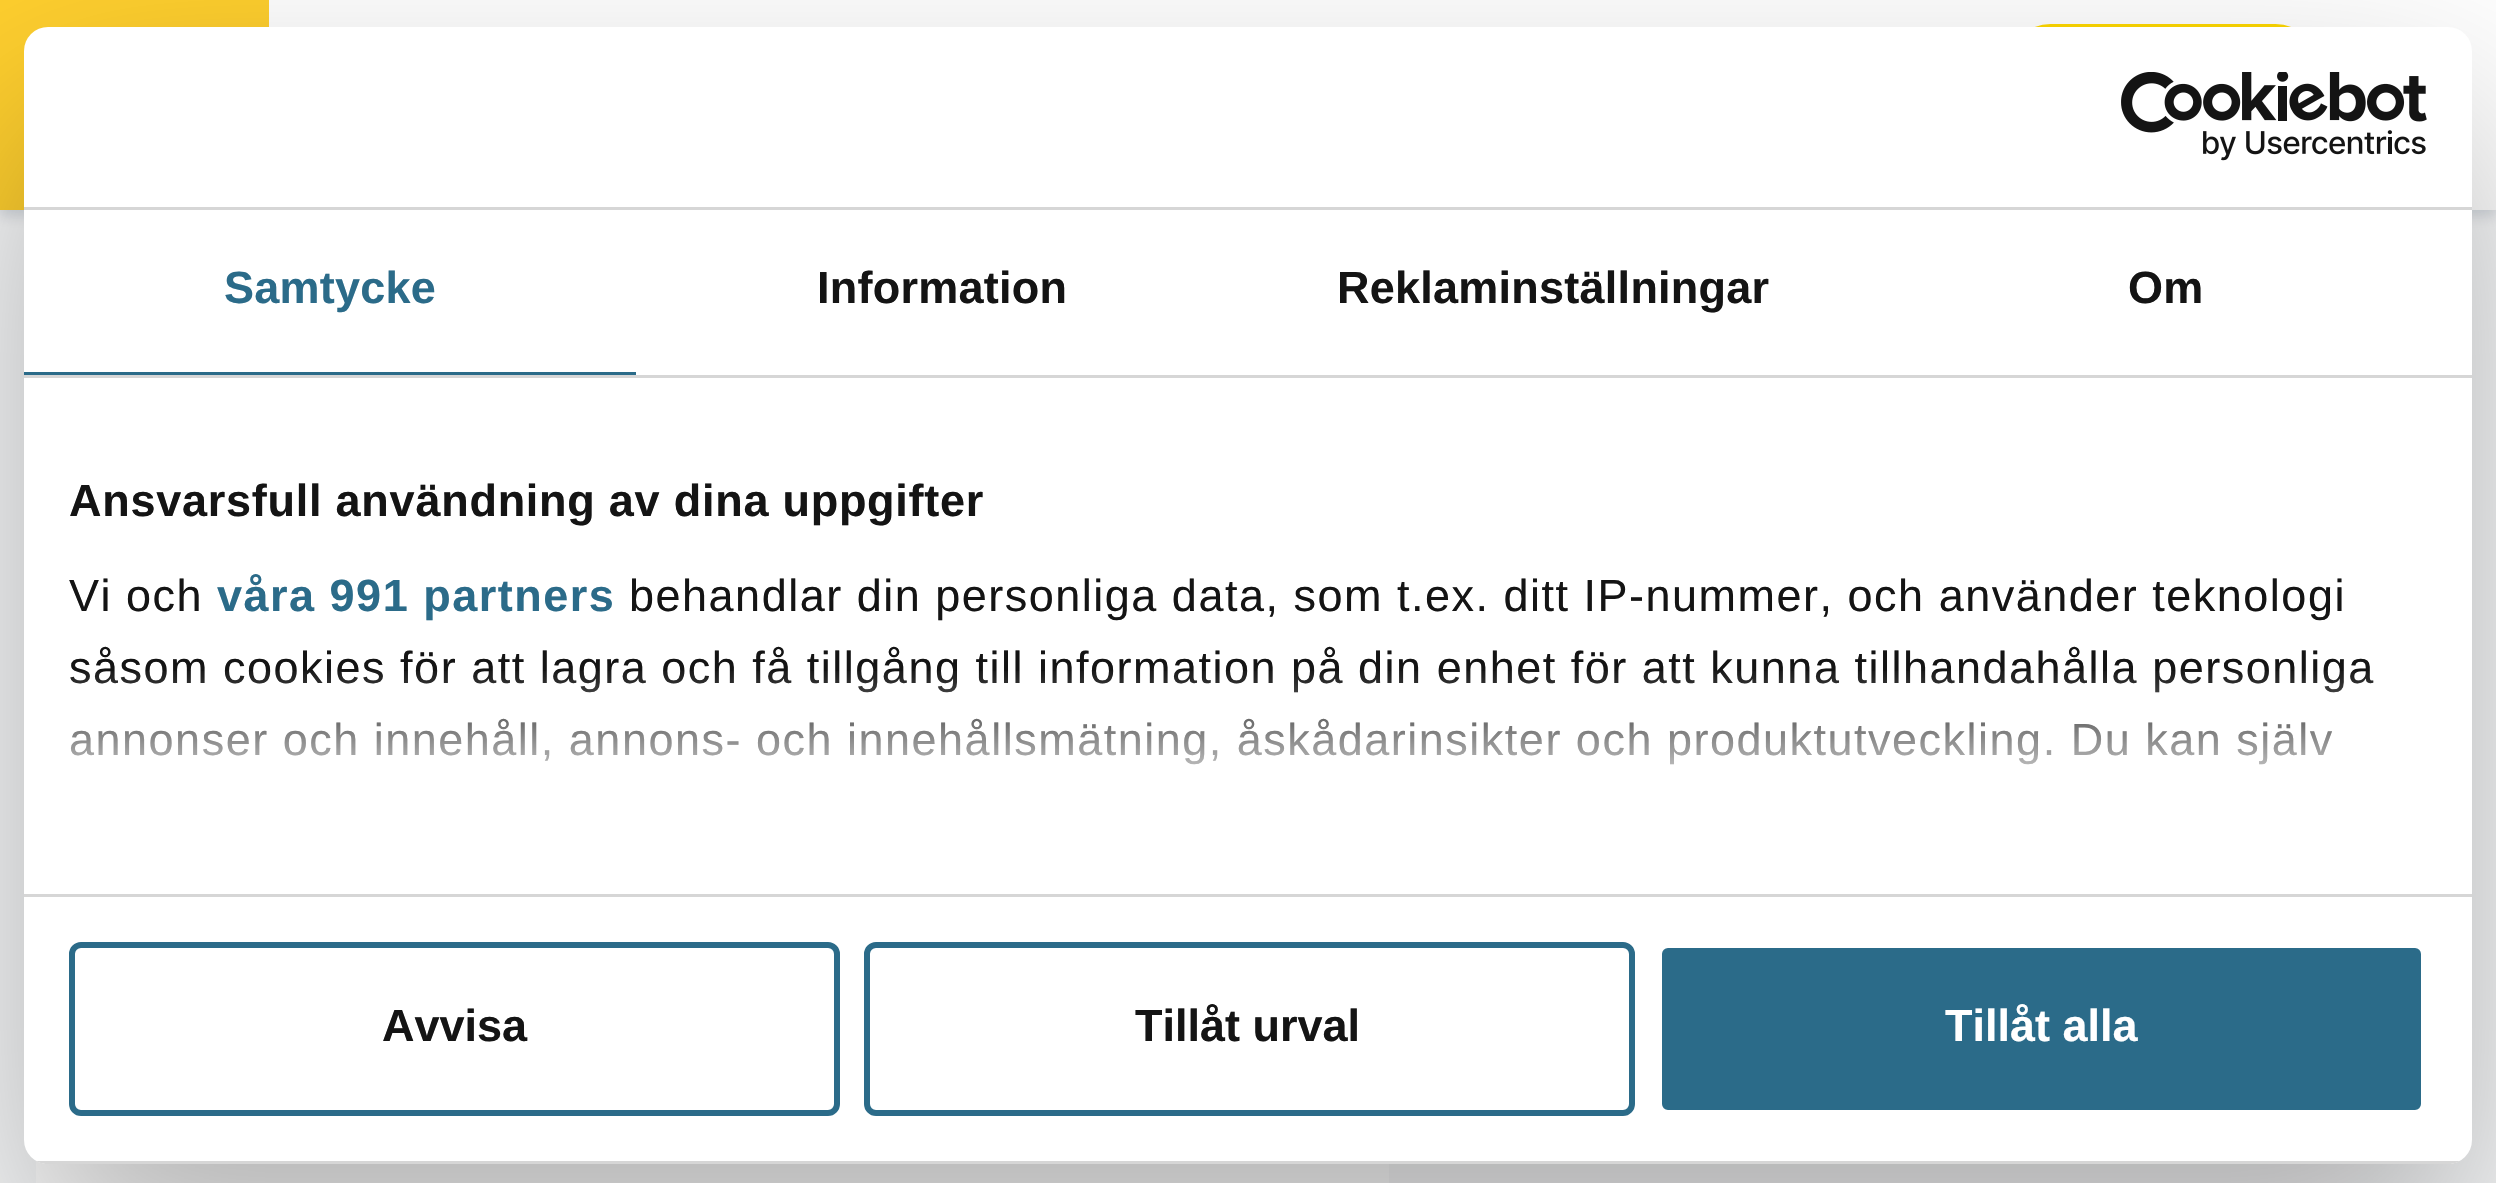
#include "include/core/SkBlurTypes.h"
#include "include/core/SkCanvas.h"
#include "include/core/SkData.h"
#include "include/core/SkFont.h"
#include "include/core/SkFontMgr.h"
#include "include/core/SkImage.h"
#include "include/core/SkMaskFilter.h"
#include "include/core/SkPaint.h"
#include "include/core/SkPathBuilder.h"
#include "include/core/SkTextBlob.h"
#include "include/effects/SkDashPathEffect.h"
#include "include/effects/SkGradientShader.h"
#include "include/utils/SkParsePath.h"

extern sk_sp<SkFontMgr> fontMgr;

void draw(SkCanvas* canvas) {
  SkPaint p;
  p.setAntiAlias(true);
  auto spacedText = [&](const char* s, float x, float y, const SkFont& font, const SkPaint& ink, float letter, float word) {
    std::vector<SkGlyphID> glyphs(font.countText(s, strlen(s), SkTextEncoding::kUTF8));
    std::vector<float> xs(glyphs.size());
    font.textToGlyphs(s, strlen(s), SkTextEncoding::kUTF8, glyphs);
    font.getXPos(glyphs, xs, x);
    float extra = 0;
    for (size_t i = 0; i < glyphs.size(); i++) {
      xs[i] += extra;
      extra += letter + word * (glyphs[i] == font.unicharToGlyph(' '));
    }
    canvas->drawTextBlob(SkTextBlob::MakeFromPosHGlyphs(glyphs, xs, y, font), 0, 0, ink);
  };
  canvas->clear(SkColorSetRGB(248, 249, 250));
  p.setColor(SkColorSetARGB(38, 4, 32, 65));
  p.setMaskFilter(SkMaskFilter::MakeBlur(kNormal_SkBlurStyle, 6));
  canvas->drawRect(SkRect::MakeLTRB(0, 6, 2496, 216), p);
  p.setMaskFilter(nullptr);
  p.setColor(SK_ColorWHITE);
  canvas->drawRect(SkRect::MakeLTRB(269, 0, 2496, 210), p);
  canvas->drawImageRect(SkImages::DeferredFromEncodedData(SkData::MakeFromFileName("images/1.png")), SkRect::MakeLTRB(0, 0, 269, 210), SkSamplingOptions());
  p.setStyle(SkPaint::kStroke_Style);
  p.setStrokeWidth(3);
  p.setColor(SkColorSetRGB(255, 216, 0));
  canvas->drawRoundRect(SkRect::MakeLTRB(2011.5f, 25.5f, 2314.5f, 103.5f), 39, 39, p);
  p.setStyle(SkPaint::kFill_Style);
  p.setColor(SK_ColorWHITE);
  canvas->drawRect(SkRect::MakeLTRB(36, 1160, 1389, 1183), p);
  p.setColor(SkColorSetARGB(77, 0, 0, 0));
  p.setMaskFilter(SkMaskFilter::MakeBlur(kNormal_SkBlurStyle, 102));
  canvas->drawRoundRect(SkRect::MakeLTRB(24, 123, 2472, 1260), 24, 24, p);
  p.setMaskFilter(nullptr);
  p.setColor(SK_ColorWHITE);
  canvas->drawRoundRect(SkRect::MakeLTRB(24, 27, 2472, 1164), 24, 24, p);
  p.setColor(SkColorSetRGB(214, 214, 214));
  canvas->drawRect(SkRect::MakeLTRB(24, 207, 2472, 210), p);
  canvas->drawImageRect(SkImages::DeferredFromEncodedData(SkData::MakeFromFileName("images/2.png")), SkRect::MakeLTRB(2121, 72, 2427, 161), SkSamplingOptions());
  canvas->drawRect(SkRect::MakeLTRB(24, 375, 2472, 378), p);
  p.setColor(SkColorSetRGB(43, 107, 137));
  canvas->drawRect(SkRect::MakeLTRB(24, 372, 636, 375), p);
  p.setColor(SkColorSetRGB(214, 214, 214));
  canvas->drawRect(SkRect::MakeLTRB(24, 894, 2472, 897), p);
  canvas->save();
  canvas->clipPath(SkPathBuilder().moveTo(48, 27).lineTo(2448, 27).cubicTo(2461.5f, 27, 2472, 37.5f, 2472, 51).lineTo(2472, 1140).cubicTo(2472, 1153.5f, 2461.5f, 1164, 2448, 1164).lineTo(48, 1164).cubicTo(34.5f, 1164, 24, 1153.5f, 24, 1140).lineTo(24, 51).cubicTo(24, 37.5f, 34.5f, 27, 48, 27).close().detach(), true);
  canvas->drawRect(SkRect::MakeLTRB(36, 1161, 2460, 1164), p);
  canvas->restore();
  p.setStyle(SkPaint::kStroke_Style);
  p.setStrokeWidth(6);
  p.setColor(SkColorSetRGB(43, 107, 137));
  canvas->drawRoundRect(SkRect::MakeLTRB(72, 945, 837, 1113), 9, 9, p);
  canvas->drawRoundRect(SkRect::MakeLTRB(867, 945, 1632, 1113), 9, 9, p);
  p.setStyle(SkPaint::kFill_Style);
  canvas->drawRoundRect(SkRect::MakeLTRB(1659, 945, 2424, 1113), 9, 9, p);
  p.setStyle(SkPaint::kStroke_Style);
  p.setColor(SK_ColorWHITE);
  canvas->drawRoundRect(SkRect::MakeLTRB(1659, 945, 2424, 1113), 9, 9, p);
  SkFont font1(fontMgr->matchFamilyStyle("Liberation Sans", SkFontStyle::Bold()), 45);
  font1.setSubpixel(true);
  p.setStyle(SkPaint::kFill_Style);
  p.setColor(SkColorSetRGB(43, 107, 137));
  spacedText("Samtycke", 224, 303, font1, p, 0.25f, 0);
  p.setColor(SkColorSetRGB(20, 20, 20));
  spacedText("Information", 817, 303, font1, p, 0.25f, 0);
  spacedText("Reklaminställningar", 1337, 303, font1, p, 0.25f, 0);
  spacedText("Om", 2128, 303, font1, p, 0.25f, 0);
  spacedText("Ansvarsfull användning av dina uppgifter", 69, 516, font1, p, 0.75f, 0);
  SkFont font2(fontMgr->matchFamilyStyle("Liberation Sans", SkFontStyle::Normal()), 45);
  font2.setSubpixel(true);
  spacedText("Vi och", 69, 611, font2, p, 1.5f, 0);
  p.setColor(SkColorSetRGB(43, 107, 137));
  spacedText("våra 991 partners", 217, 611, font1, p, 1.5f, 0);
  p.setColor(SkColorSetRGB(20, 20, 20));
  spacedText("behandlar din personliga data, som t.ex. ditt IP-nummer, och använder teknologi", 629, 611, font2, p, 1.5f, 0);
  spacedText("såsom cookies för att lagra och få tillgång till information på din enhet för att kunna tillhandahålla personliga", 69, 683, font2, p, 1.5f, 0);
  spacedText("annonser och innehåll, annons- och innehållsmätning, åskådarinsikter och produktutveckling. Du kan själv", 69, 755, font2, p, 1.5f, 0);
  {
    const SkColor colors[] = {SK_ColorWHITE, SkColorSetARGB(204, 255, 255, 255), SkColorSetARGB(0, 255, 255, 255)};
    const float stops[] = {0, 0.5f, 1};
    const SkPoint ends[] = {{1229, 893}, {1229, 668}};
    p.setShader(SkGradientShader::MakeLinear(ends, colors, stops, 3, SkTileMode::kClamp));
    p.setAlpha(255);
  }
  canvas->drawRect(SkRect::MakeLTRB(70, 671, 2374, 765), p);
  p.setShader(nullptr);
  p.setColor(SkColorSetRGB(20, 20, 20));
  canvas->drawString("Avvisa", 382, 1041, font1, p);
  canvas->drawString("Tillåt urval", 1135, 1041, font1, p);
  p.setColor(SK_ColorWHITE);
  canvas->drawString("Tillåt alla", 1945, 1041, font1, p);
}
